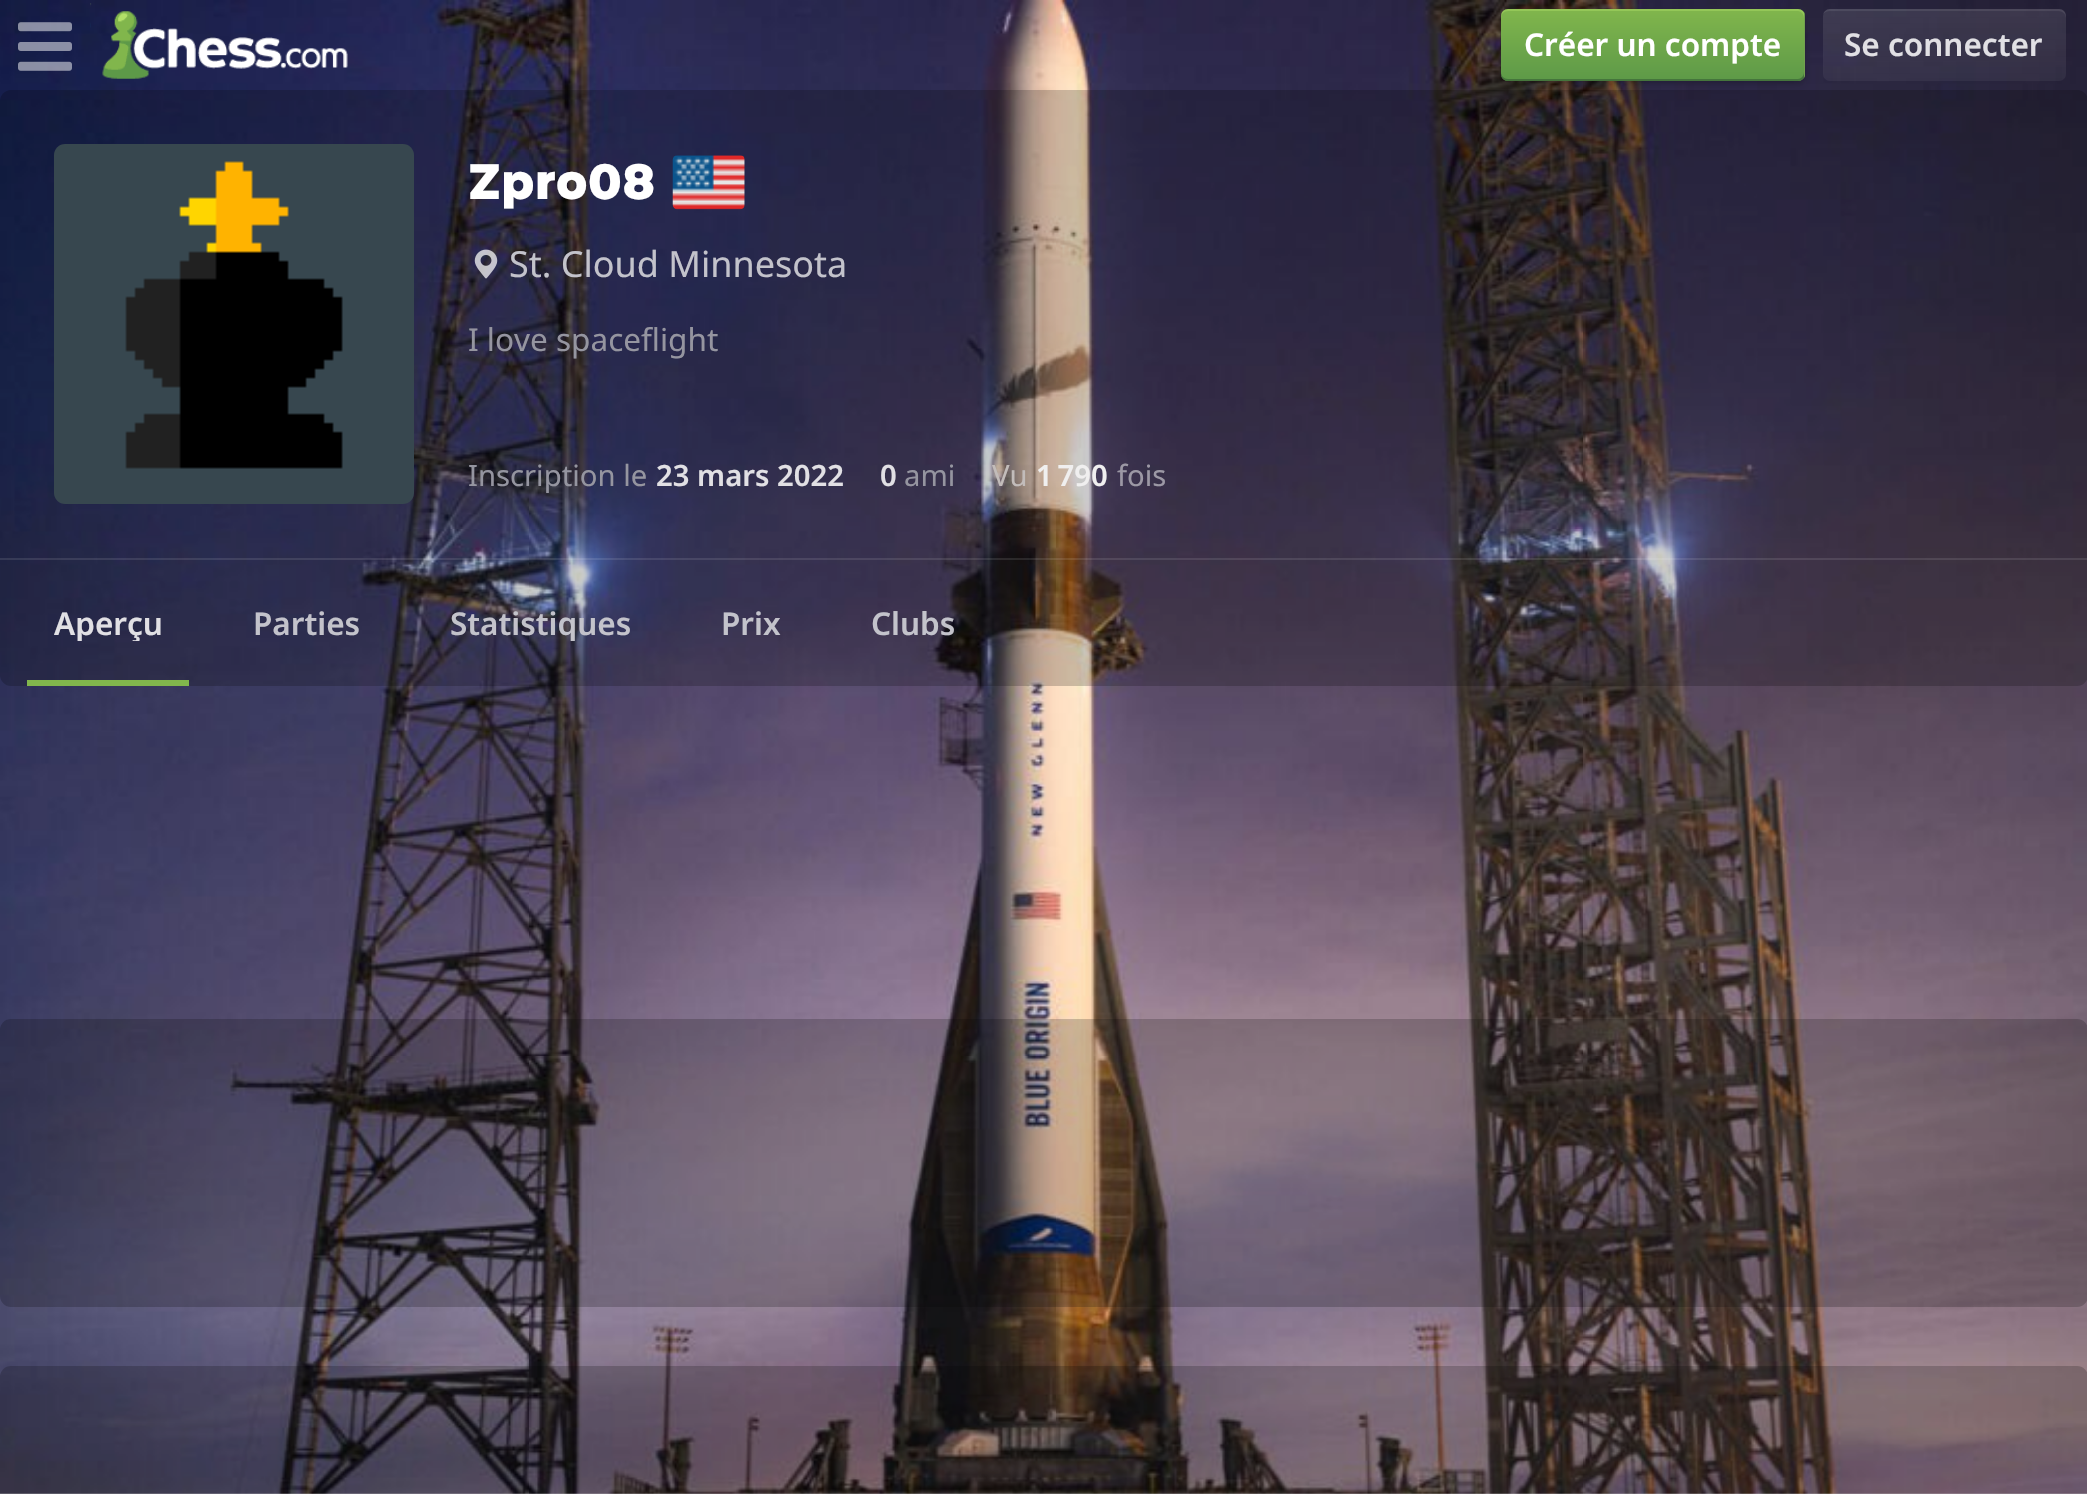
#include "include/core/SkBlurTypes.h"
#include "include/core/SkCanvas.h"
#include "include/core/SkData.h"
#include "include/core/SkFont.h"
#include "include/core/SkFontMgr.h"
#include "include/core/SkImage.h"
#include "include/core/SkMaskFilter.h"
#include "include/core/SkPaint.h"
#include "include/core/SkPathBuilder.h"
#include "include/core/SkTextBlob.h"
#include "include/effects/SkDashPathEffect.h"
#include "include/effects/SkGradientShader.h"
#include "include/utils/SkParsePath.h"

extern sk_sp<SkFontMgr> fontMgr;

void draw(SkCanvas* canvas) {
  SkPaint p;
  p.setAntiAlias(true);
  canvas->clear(SK_ColorWHITE);
  canvas->drawImageRect(SkImages::DeferredFromEncodedData(SkData::MakeFromFileName("images/1.png")), SkRect::MakeLTRB(0, 0, 2087, 1494), SkSamplingOptions());
  canvas->drawImageRect(SkImages::DeferredFromEncodedData(SkData::MakeFromFileName("images/2.png")), SkRect::MakeLTRB(18, 22, 72, 71), SkSamplingOptions());
  canvas->drawImageRect(SkImages::DeferredFromEncodedData(SkData::MakeFromFileName("images/3.png")), SkRect::MakeLTRB(90, 3, 348, 79), SkSamplingOptions());
  p.setColor(SkColorSetARGB(26, 0, 0, 0));
  p.setMaskFilter(SkMaskFilter::MakeBlur(kNormal_SkBlurStyle, 4.5f));
  canvas->drawRoundRect(SkRect::MakeLTRB(1501, 14, 1805, 86), 7, 7, p);
  p.setMaskFilter(nullptr);
  p.setColor(SkColorSetARGB(36, 0, 0, 0));
  p.setMaskFilter(SkMaskFilter::MakeBlur(kNormal_SkBlurStyle, 2));
  canvas->drawRoundRect(SkRect::MakeLTRB(1501, 11, 1805, 83), 7, 7, p);
  p.setMaskFilter(nullptr);
  {
    const SkColor colors[] = {SkColorSetRGB(129, 182, 76), SkColorSetRGB(93, 153, 72)};
    const float stops[] = {0, 1};
    const SkPoint ends[] = {{1653, 9}, {1653, 81}};
    p.setShader(SkGradientShader::MakeLinear(ends, colors, stops, 2, SkTileMode::kClamp));
    p.setAlpha(255);
  }
  canvas->drawRoundRect(SkRect::MakeLTRB(1501, 9, 1805, 81), 7, 7, p);
  p.setShader(nullptr);
  p.setColor(SkColorSetRGB(69, 117, 60));
  canvas->drawPath(SkPathBuilder().moveTo(1501, 72).lineTo(1501, 74).cubicTo(1501, 78, 1504, 81, 1508, 81).lineTo(1798, 81).cubicTo(1802, 81, 1805, 78, 1805, 74).lineTo(1805, 16).cubicTo(1805, 15, 1805, 13, 1804, 12).lineTo(1804, 72).cubicTo(1804, 76, 1801, 79, 1798, 79).lineTo(1508, 79).cubicTo(1504, 79, 1501, 76, 1501, 72).close().detach(), p);
  p.setColor(SkColorSetARGB(102, 178, 224, 104));
  canvas->drawPath(SkPathBuilder().moveTo(1508, 11).lineTo(1798, 11).cubicTo(1801, 11, 1804, 14, 1804, 18).lineTo(1804, 78).cubicTo(1805, 77, 1805, 75, 1805, 74).lineTo(1805, 16).cubicTo(1805, 12, 1802, 9, 1798, 9).lineTo(1508, 9).cubicTo(1504, 9, 1501, 12, 1501, 16).lineTo(1501, 18).cubicTo(1501, 14, 1504, 11, 1508, 11).close().detach(), p);
  {
    const SkColor colors[] = {SkColorSetARGB(26, 255, 255, 255), SkColorSetARGB(13, 255, 255, 255)};
    const float stops[] = {0, 1};
    const SkPoint ends[] = {{1944, 9}, {1944, 81}};
    p.setShader(SkGradientShader::MakeLinear(ends, colors, stops, 2, SkTileMode::kClamp));
    p.setAlpha(255);
  }
  canvas->drawRoundRect(SkRect::MakeLTRB(1823, 9, 2066, 81), 7, 7, p);
  p.setShader(nullptr);
  p.setColor(SkColorSetARGB(20, 255, 255, 255));
  canvas->drawPath(SkPathBuilder().moveTo(1829, 11).lineTo(2059, 11).cubicTo(2062, 11, 2066, 14, 2066, 18).lineTo(2066, 16).cubicTo(2066, 12, 2063, 9, 2059, 9).lineTo(1830, 9).cubicTo(1827, 9, 1824, 11, 1823, 14).cubicTo(1825, 12, 1827, 11, 1829, 11).close().detach(), p);
  p.setColor(SkColorSetARGB(51, 0, 0, 0));
  canvas->drawPath(SkPathBuilder().moveTo(11, 90).lineTo(2077, 90).cubicTo(2083, 90, 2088, 95, 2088, 101).lineTo(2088, 558).lineTo(0, 558).lineTo(0, 101).cubicTo(0, 95, 5, 90, 11, 90).close().detach(), p);
  canvas->drawImageRect(SkImages::DeferredFromEncodedData(SkData::MakeFromFileName("images/4.png")), SkRect::MakeLTRB(54, 144, 414, 504), SkSamplingOptions());
  canvas->drawImageRect(SkImages::DeferredFromEncodedData(SkData::MakeFromFileName("images/5.png")), SkRect::MakeLTRB(672, 155, 745, 210), SkSamplingOptions());
  canvas->drawImageRect(SkImages::DeferredFromEncodedData(SkData::MakeFromFileName("images/6.png")), SkRect::MakeLTRB(474, 249, 498, 279), SkSamplingOptions());
  canvas->drawPath(SkPathBuilder().moveTo(0, 558).lineTo(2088, 558).lineTo(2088, 675).cubicTo(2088, 681, 2083, 686, 2077, 686).lineTo(11, 686).cubicTo(5, 686, 0, 681, 0, 675).close().detach(), p);
  p.setColor(SkColorSetARGB(26, 255, 255, 255));
  canvas->drawRect(SkRect::MakeLTRB(0, 558, 2087, 560), p);
  p.setColor(SkColorSetRGB(129, 182, 76));
  canvas->drawRect(SkRect::MakeLTRB(27, 680, 189, 686), p);
  p.setColor(SkColorSetARGB(51, 0, 0, 0));
  canvas->drawRoundRect(SkRect::MakeLTRB(0, 1019, 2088, 1307), 11, 11, p);
  canvas->drawRoundRect(SkRect::MakeLTRB(0, 1366, 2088, 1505), 11, 11, p);
  SkFont font1(fontMgr->matchFamilyStyle("Noto Sans", SkFontStyle(600, SkFontStyle::kNormal_Width, SkFontStyle::kUpright_Slant)), 31.5f);
  font1.setSubpixel(true);
  p.setColor(SK_ColorWHITE);
  canvas->drawString("Créer un compte", 1524, 56, font1, p);
  p.setColor(SkColorSetRGB(225, 224, 228));
  canvas->drawString("Se connecter", 1844, 56, font1, p);
  SkFont font2(fontMgr->matchFamilyStyle("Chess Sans", SkFontStyle(800, SkFontStyle::kNormal_Width, SkFontStyle::kUpright_Slant)), 49.5f);
  font2.setSubpixel(true);
  p.setColor(SK_ColorWHITE);
  canvas->drawString("Zpro08", 468, 199, font2, p);
  SkFont font3(fontMgr->matchFamilyStyle("Noto Sans", SkFontStyle::Normal()), 36);
  font3.setSubpixel(true);
  p.setColor(SkColorSetRGB(195, 195, 203));
  canvas->drawString("St. Cloud Minnesota", 509, 277, font3, p);
  SkFont font4(fontMgr->matchFamilyStyle("Noto Sans", SkFontStyle::Normal()), 31.5f);
  font4.setSubpixel(true);
  p.setColor(SkColorSetRGB(149, 149, 160));
  canvas->drawString("I love spaceflight", 468, 351, font4, p);
  SkFont font5(fontMgr->matchFamilyStyle("Noto Sans", SkFontStyle::Normal()), 29.25f);
  font5.setSubpixel(true);
  canvas->drawString("Inscription le", 468, 486, font5, p);
  SkFont font6(fontMgr->matchFamilyStyle("Noto Sans", SkFontStyle(600, SkFontStyle::kNormal_Width, SkFontStyle::kUpright_Slant)), 29.25f);
  font6.setSubpixel(true);
  p.setColor(SkColorSetRGB(225, 224, 228));
  canvas->drawString("23 mars 2022", 656, 486, font6, p);
  canvas->drawString("0", 880, 486, font6, p);
  p.setColor(SkColorSetRGB(149, 149, 160));
  canvas->drawString("ami", 904, 486, font5, p);
  p.setColor(SkColorSetRGB(194, 188, 186));
  canvas->drawString("Vu", 992, 486, font5, p);
  p.setColor(SkColorSetRGB(240, 239, 239));
  canvas->drawString("1 790", 1036, 486, font6, p);
  p.setColor(SkColorSetRGB(156, 152, 165));
  canvas->drawString("fois", 1117, 486, font5, p);
  canvas->save();
  canvas->clipRect(SkRect::MakeLTRB(54, 605, 162, 641));
  p.setColor(SkColorSetRGB(225, 224, 228));
  canvas->drawString("Aperçu", 54, 635, font1, p);
  canvas->restore();
  p.setColor(SkColorSetRGB(195, 195, 203));
  canvas->drawString("Parties", 253, 635, font1, p);
  canvas->save();
  canvas->clipRect(SkRect::MakeLTRB(450, 605, 632, 641));
  canvas->drawString("Statistiques", 450, 635, font1, p);
  canvas->restore();
  canvas->drawString("Prix", 721, 635, font1, p);
  canvas->drawString("Clubs", 871, 635, font1, p);
}
